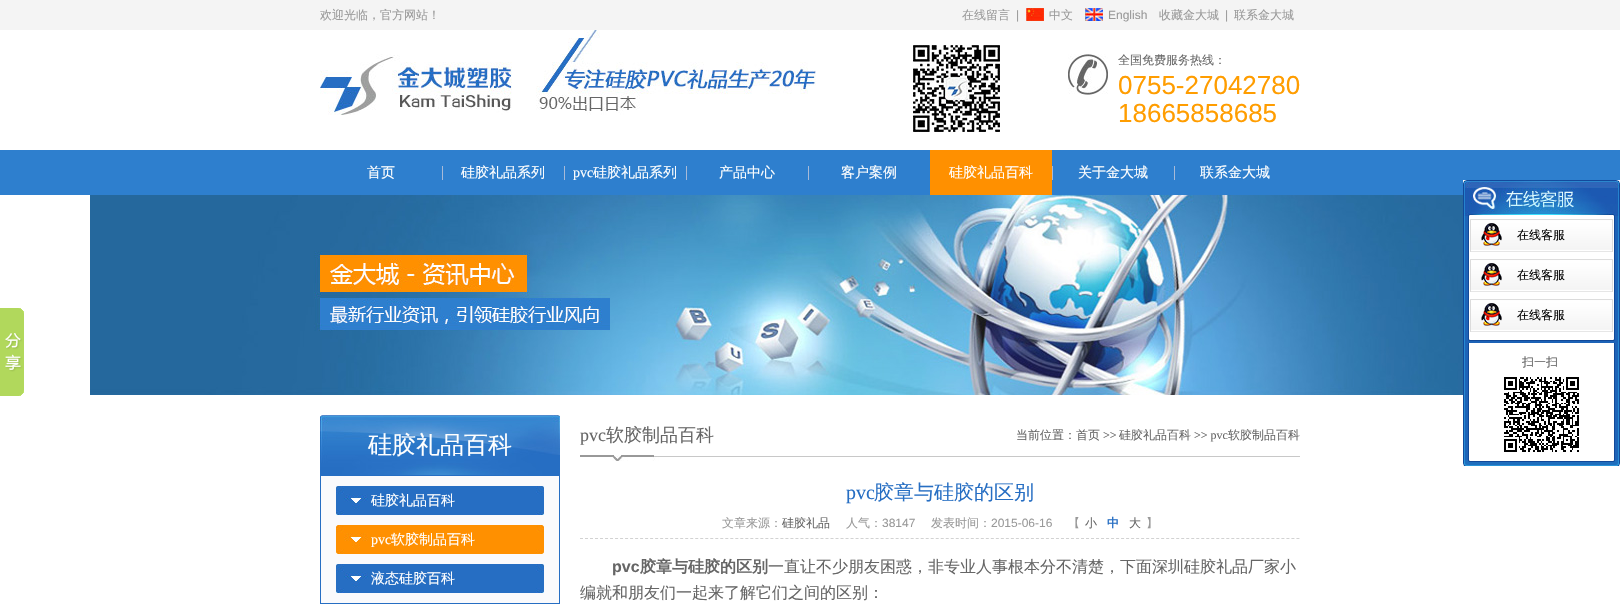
#include "include/core/SkBlurTypes.h"
#include "include/core/SkCanvas.h"
#include "include/core/SkData.h"
#include "include/core/SkFont.h"
#include "include/core/SkFontMgr.h"
#include "include/core/SkImage.h"
#include "include/core/SkMaskFilter.h"
#include "include/core/SkPaint.h"
#include "include/core/SkPathBuilder.h"
#include "include/core/SkTextBlob.h"
#include "include/effects/SkDashPathEffect.h"
#include "include/effects/SkGradientShader.h"
#include "include/utils/SkParsePath.h"

extern sk_sp<SkFontMgr> fontMgr;

void draw(SkCanvas* canvas) {
  SkPaint p;
  p.setAntiAlias(true);
  canvas->clear(SK_ColorWHITE);
  p.setColor(SkColorSetRGB(244, 244, 244));
  canvas->drawRect(SkRect::MakeLTRB(0, 0, 1620, 30), p);
  canvas->drawImageRect(SkImages::DeferredFromEncodedData(SkData::MakeFromFileName("images/1.png")), SkRect::MakeLTRB(1026, 8, 1044, 21), SkSamplingOptions());
  canvas->drawImageRect(SkImages::DeferredFromEncodedData(SkData::MakeFromFileName("images/2.png")), SkRect::MakeLTRB(1085, 8, 1103, 21), SkSamplingOptions());
  canvas->drawImageRect(SkImages::DeferredFromEncodedData(SkData::MakeFromFileName("images/3.png")), SkRect::MakeLTRB(320, 30, 816, 115), SkSamplingOptions());
  canvas->drawImageRect(SkImages::DeferredFromEncodedData(SkData::MakeFromFileName("images/4.png")), SkRect::MakeLTRB(913, 45, 1000, 132), SkSamplingOptions());
  canvas->drawImageRect(SkImages::DeferredFromEncodedData(SkData::MakeFromFileName("images/5.png")), SkRect::MakeLTRB(1068, 54, 1108, 95), SkSamplingOptions());
  p.setColor(SkColorSetRGB(46, 127, 206));
  canvas->drawRect(SkRect::MakeLTRB(0, 150, 1620, 195), p);
  p.setColor(SkColorSetRGB(167, 186, 216));
  canvas->drawRect(SkRect::MakeLTRB(442, 166, 443, 180), p);
  canvas->drawRect(SkRect::MakeLTRB(564, 166, 565, 180), p);
  canvas->drawRect(SkRect::MakeLTRB(686, 166, 687, 180), p);
  canvas->drawRect(SkRect::MakeLTRB(808, 166, 809, 180), p);
  p.setColor(SkColorSetRGB(255, 144, 0));
  canvas->drawRect(SkRect::MakeLTRB(930, 150, 1052, 195), p);
  p.setColor(SkColorSetRGB(167, 186, 216));
  canvas->drawRect(SkRect::MakeLTRB(1052, 166, 1053, 180), p);
  canvas->drawRect(SkRect::MakeLTRB(1174, 166, 1175, 180), p);
  canvas->drawImageRect(SkImages::DeferredFromEncodedData(SkData::MakeFromFileName("images/6.png")), SkRect::MakeLTRB(0, 308, 24, 396), SkSamplingOptions());
  canvas->drawImageRect(SkImages::DeferredFromEncodedData(SkData::MakeFromFileName("images/7.png")), SkRect::MakeLTRB(90, 195, 1463, 395), SkSamplingOptions());
  canvas->drawImageRect(SkImages::DeferredFromEncodedData(SkData::MakeFromFileName("images/8.png")), SkRect::MakeLTRB(1463, 180, 1620, 216), SkSamplingOptions());
  canvas->drawImageRect(SkImages::DeferredFromEncodedData(SkData::MakeFromFileName("images/9.png")), SkRect::MakeLTRB(1463, 216, 1620, 460), SkSamplingOptions());
  canvas->drawImageRect(SkImages::DeferredFromEncodedData(SkData::MakeFromFileName("images/10.png")), SkRect::MakeLTRB(1470, 219, 1613, 252), SkSamplingOptions());
  canvas->drawImageRect(SkImages::DeferredFromEncodedData(SkData::MakeFromFileName("images/10.png")), SkRect::MakeLTRB(1470, 259, 1613, 292), SkSamplingOptions());
  canvas->drawImageRect(SkImages::DeferredFromEncodedData(SkData::MakeFromFileName("images/10.png")), SkRect::MakeLTRB(1470, 299, 1613, 332), SkSamplingOptions());
  canvas->drawImageRect(SkImages::DeferredFromEncodedData(SkData::MakeFromFileName("images/11.png")), SkRect::MakeLTRB(1468, 339, 1615, 343), SkSamplingOptions());
  p.setColor(SK_ColorBLACK);
  canvas->drawRect(SkRect::MakeLTRB(1504, 377, 1517, 379), p);
  canvas->drawRect(SkRect::MakeLTRB(1520, 377, 1524, 379), p);
  canvas->drawRect(SkRect::MakeLTRB(1526, 377, 1528, 379), p);
  canvas->drawRect(SkRect::MakeLTRB(1530, 377, 1531, 379), p);
  canvas->drawRect(SkRect::MakeLTRB(1537, 377, 1539, 379), p);
  canvas->drawRect(SkRect::MakeLTRB(1541, 377, 1542, 379), p);
  canvas->drawRect(SkRect::MakeLTRB(1544, 377, 1546, 381), p);
  canvas->drawRect(SkRect::MakeLTRB(1550, 377, 1552, 379), p);
  canvas->drawRect(SkRect::MakeLTRB(1555, 377, 1557, 381), p);
  canvas->drawRect(SkRect::MakeLTRB(1559, 377, 1561, 379), p);
  canvas->drawRect(SkRect::MakeLTRB(1566, 377, 1579, 379), p);
  canvas->drawRect(SkRect::MakeLTRB(1504, 379, 1506, 390), p);
  canvas->drawRect(SkRect::MakeLTRB(1515, 379, 1517, 388), p);
  canvas->drawRect(SkRect::MakeLTRB(1519, 379, 1520, 390), p);
  canvas->drawRect(SkRect::MakeLTRB(1524, 379, 1528, 381), p);
  canvas->drawRect(SkRect::MakeLTRB(1531, 379, 1533, 381), p);
  canvas->drawRect(SkRect::MakeLTRB(1535, 379, 1537, 381), p);
  canvas->drawRect(SkRect::MakeLTRB(1539, 379, 1542, 381), p);
  canvas->drawRect(SkRect::MakeLTRB(1557, 379, 1561, 381), p);
  canvas->drawRect(SkRect::MakeLTRB(1563, 379, 1564, 382), p);
  canvas->drawRect(SkRect::MakeLTRB(1566, 379, 1568, 390), p);
  canvas->drawRect(SkRect::MakeLTRB(1577, 379, 1579, 388), p);
  canvas->drawRect(SkRect::MakeLTRB(1508, 381, 1513, 382), p);
  canvas->drawRect(SkRect::MakeLTRB(1520, 381, 1522, 388), p);
  canvas->drawRect(SkRect::MakeLTRB(1524, 381, 1526, 382), p);
  canvas->drawRect(SkRect::MakeLTRB(1530, 381, 1535, 382), p);
  canvas->drawRect(SkRect::MakeLTRB(1539, 381, 1548, 382), p);
  canvas->drawRect(SkRect::MakeLTRB(1550, 381, 1552, 382), p);
  canvas->drawRect(SkRect::MakeLTRB(1553, 381, 1555, 384), p);
  canvas->drawRect(SkRect::MakeLTRB(1559, 381, 1561, 384), p);
  canvas->drawRect(SkRect::MakeLTRB(1570, 381, 1575, 382), p);
  canvas->drawRect(SkRect::MakeLTRB(1508, 382, 1513, 384), p);
  canvas->drawRect(SkRect::MakeLTRB(1522, 382, 1524, 390), p);
  canvas->drawRect(SkRect::MakeLTRB(1526, 382, 1535, 384), p);
  canvas->drawRect(SkRect::MakeLTRB(1541, 382, 1542, 390), p);
  canvas->drawRect(SkRect::MakeLTRB(1544, 382, 1550, 384), p);
  canvas->drawRect(SkRect::MakeLTRB(1555, 382, 1557, 384), p);
  canvas->drawRect(SkRect::MakeLTRB(1561, 382, 1563, 384), p);
  canvas->drawRect(SkRect::MakeLTRB(1570, 382, 1575, 384), p);
  canvas->drawRect(SkRect::MakeLTRB(1508, 384, 1513, 386), p);
  canvas->drawRect(SkRect::MakeLTRB(1528, 384, 1530, 386), p);
  canvas->drawRect(SkRect::MakeLTRB(1537, 384, 1539, 386), p);
  canvas->drawRect(SkRect::MakeLTRB(1546, 384, 1548, 386), p);
  canvas->drawRect(SkRect::MakeLTRB(1557, 384, 1561, 386), p);
  canvas->drawRect(SkRect::MakeLTRB(1570, 384, 1575, 386), p);
  canvas->drawRect(SkRect::MakeLTRB(1524, 386, 1530, 388), p);
  canvas->drawRect(SkRect::MakeLTRB(1531, 386, 1533, 388), p);
  canvas->drawRect(SkRect::MakeLTRB(1542, 386, 1553, 388), p);
  canvas->drawRect(SkRect::MakeLTRB(1555, 386, 1559, 388), p);
  canvas->drawRect(SkRect::MakeLTRB(1563, 386, 1564, 390), p);
  canvas->drawRect(SkRect::MakeLTRB(1506, 388, 1517, 390), p);
  canvas->drawRect(SkRect::MakeLTRB(1526, 388, 1528, 390), p);
  canvas->drawRect(SkRect::MakeLTRB(1530, 388, 1531, 392), p);
  canvas->drawRect(SkRect::MakeLTRB(1533, 388, 1535, 393), p);
  canvas->drawRect(SkRect::MakeLTRB(1537, 388, 1539, 390), p);
  canvas->drawRect(SkRect::MakeLTRB(1544, 388, 1546, 390), p);
  canvas->drawRect(SkRect::MakeLTRB(1548, 388, 1550, 390), p);
  canvas->drawRect(SkRect::MakeLTRB(1552, 388, 1553, 390), p);
  canvas->drawRect(SkRect::MakeLTRB(1555, 388, 1557, 390), p);
  canvas->drawRect(SkRect::MakeLTRB(1559, 388, 1561, 392), p);
  canvas->drawRect(SkRect::MakeLTRB(1568, 388, 1579, 390), p);
  canvas->drawRect(SkRect::MakeLTRB(1520, 390, 1522, 392), p);
  canvas->drawRect(SkRect::MakeLTRB(1535, 390, 1537, 392), p);
  canvas->drawRect(SkRect::MakeLTRB(1542, 390, 1548, 392), p);
  canvas->drawRect(SkRect::MakeLTRB(1550, 390, 1557, 392), p);
  canvas->drawRect(SkRect::MakeLTRB(1508, 392, 1509, 393), p);
  canvas->drawRect(SkRect::MakeLTRB(1513, 392, 1524, 393), p);
  canvas->drawRect(SkRect::MakeLTRB(1528, 392, 1530, 395), p);
  canvas->drawRect(SkRect::MakeLTRB(1537, 392, 1539, 393), p);
  canvas->drawRect(SkRect::MakeLTRB(1541, 392, 1542, 393), p);
  canvas->drawRect(SkRect::MakeLTRB(1544, 392, 1552, 393), p);
  canvas->drawRect(SkRect::MakeLTRB(1555, 392, 1557, 393), p);
  canvas->drawRect(SkRect::MakeLTRB(1561, 392, 1566, 393), p);
  canvas->drawRect(SkRect::MakeLTRB(1568, 392, 1577, 393), p);
  canvas->drawRect(SkRect::MakeLTRB(1504, 393, 1509, 395), p);
  canvas->drawRect(SkRect::MakeLTRB(1513, 393, 1515, 397), p);
  canvas->drawRect(SkRect::MakeLTRB(1520, 393, 1526, 395), p);
  canvas->drawRect(SkRect::MakeLTRB(1531, 393, 1537, 395), p);
  canvas->drawRect(SkRect::MakeLTRB(1539, 393, 1542, 395), p);
  canvas->drawRect(SkRect::MakeLTRB(1544, 393, 1548, 395), p);
  canvas->drawRect(SkRect::MakeLTRB(1553, 393, 1564, 395), p);
  canvas->drawRect(SkRect::MakeLTRB(1566, 393, 1570, 395), p);
  canvas->drawRect(SkRect::MakeLTRB(1573, 393, 1575, 395), p);
  canvas->drawRect(SkRect::MakeLTRB(1577, 393, 1579, 395), p);
  canvas->drawRect(SkRect::MakeLTRB(1506, 395, 1511, 397), p);
  canvas->drawRect(SkRect::MakeLTRB(1515, 395, 1517, 397), p);
  canvas->drawRect(SkRect::MakeLTRB(1522, 395, 1528, 397), p);
  canvas->drawRect(SkRect::MakeLTRB(1533, 395, 1535, 397), p);
  canvas->drawRect(SkRect::MakeLTRB(1544, 395, 1548, 397), p);
  canvas->drawRect(SkRect::MakeLTRB(1550, 395, 1557, 397), p);
  canvas->drawRect(SkRect::MakeLTRB(1561, 395, 1564, 397), p);
  canvas->drawRect(SkRect::MakeLTRB(1568, 395, 1570, 399), p);
  canvas->drawRect(SkRect::MakeLTRB(1572, 395, 1579, 397), p);
  canvas->drawRect(SkRect::MakeLTRB(1506, 397, 1509, 399), p);
  canvas->drawRect(SkRect::MakeLTRB(1511, 397, 1515, 399), p);
  canvas->drawRect(SkRect::MakeLTRB(1517, 397, 1522, 399), p);
  canvas->drawRect(SkRect::MakeLTRB(1524, 397, 1530, 399), p);
  canvas->drawRect(SkRect::MakeLTRB(1531, 397, 1541, 399), p);
  canvas->drawRect(SkRect::MakeLTRB(1544, 397, 1546, 401), p);
  canvas->drawRect(SkRect::MakeLTRB(1548, 397, 1552, 399), p);
  canvas->drawRect(SkRect::MakeLTRB(1553, 397, 1557, 399), p);
  canvas->drawRect(SkRect::MakeLTRB(1563, 397, 1566, 399), p);
  canvas->drawRect(SkRect::MakeLTRB(1570, 397, 1573, 399), p);
  canvas->drawRect(SkRect::MakeLTRB(1575, 397, 1577, 401), p);
  canvas->drawRect(SkRect::MakeLTRB(1504, 399, 1506, 403), p);
  canvas->drawRect(SkRect::MakeLTRB(1509, 399, 1513, 401), p);
  canvas->drawRect(SkRect::MakeLTRB(1515, 399, 1517, 401), p);
  canvas->drawRect(SkRect::MakeLTRB(1520, 399, 1522, 401), p);
  canvas->drawRect(SkRect::MakeLTRB(1524, 399, 1528, 401), p);
  canvas->drawRect(SkRect::MakeLTRB(1530, 399, 1531, 401), p);
  canvas->drawRect(SkRect::MakeLTRB(1535, 399, 1539, 401), p);
  canvas->drawRect(SkRect::MakeLTRB(1541, 399, 1542, 401), p);
  canvas->drawRect(SkRect::MakeLTRB(1552, 399, 1553, 403), p);
  canvas->drawRect(SkRect::MakeLTRB(1555, 399, 1557, 404), p);
  canvas->drawRect(SkRect::MakeLTRB(1561, 399, 1563, 401), p);
  canvas->drawRect(SkRect::MakeLTRB(1566, 399, 1570, 401), p);
  canvas->drawRect(SkRect::MakeLTRB(1577, 399, 1579, 404), p);
  canvas->drawRect(SkRect::MakeLTRB(1506, 401, 1508, 404), p);
  canvas->drawRect(SkRect::MakeLTRB(1511, 401, 1515, 403), p);
  canvas->drawRect(SkRect::MakeLTRB(1517, 401, 1522, 403), p);
  canvas->drawRect(SkRect::MakeLTRB(1531, 401, 1537, 403), p);
  canvas->drawRect(SkRect::MakeLTRB(1539, 401, 1548, 403), p);
  canvas->drawRect(SkRect::MakeLTRB(1566, 401, 1570, 403), p);
  canvas->drawRect(SkRect::MakeLTRB(1572, 401, 1575, 403), p);
  canvas->drawRect(SkRect::MakeLTRB(1508, 403, 1509, 404), p);
  canvas->drawRect(SkRect::MakeLTRB(1511, 403, 1513, 404), p);
  canvas->drawRect(SkRect::MakeLTRB(1515, 403, 1520, 404), p);
  canvas->drawRect(SkRect::MakeLTRB(1522, 403, 1526, 404), p);
  canvas->drawRect(SkRect::MakeLTRB(1528, 403, 1531, 404), p);
  canvas->drawRect(SkRect::MakeLTRB(1535, 403, 1537, 408), p);
  canvas->drawRect(SkRect::MakeLTRB(1539, 403, 1541, 404), p);
  canvas->drawRect(SkRect::MakeLTRB(1548, 403, 1550, 404), p);
  canvas->drawRect(SkRect::MakeLTRB(1557, 403, 1559, 404), p);
  canvas->drawRect(SkRect::MakeLTRB(1561, 403, 1563, 404), p);
  canvas->drawRect(SkRect::MakeLTRB(1564, 403, 1566, 404), p);
  canvas->drawRect(SkRect::MakeLTRB(1568, 403, 1570, 404), p);
  canvas->drawRect(SkRect::MakeLTRB(1573, 403, 1575, 404), p);
  canvas->drawRect(SkRect::MakeLTRB(1504, 404, 1506, 406), p);
  canvas->drawRect(SkRect::MakeLTRB(1517, 404, 1519, 406), p);
  canvas->drawRect(SkRect::MakeLTRB(1522, 404, 1524, 406), p);
  canvas->drawRect(SkRect::MakeLTRB(1526, 404, 1530, 406), p);
  canvas->drawRect(SkRect::MakeLTRB(1537, 404, 1542, 406), p);
  canvas->drawRect(SkRect::MakeLTRB(1546, 404, 1548, 408), p);
  canvas->drawRect(SkRect::MakeLTRB(1552, 404, 1557, 406), p);
  canvas->drawRect(SkRect::MakeLTRB(1559, 404, 1561, 408), p);
  canvas->drawRect(SkRect::MakeLTRB(1566, 404, 1570, 406), p);
  canvas->drawRect(SkRect::MakeLTRB(1508, 406, 1513, 408), p);
  canvas->drawRect(SkRect::MakeLTRB(1515, 406, 1530, 408), p);
  canvas->drawRect(SkRect::MakeLTRB(1539, 406, 1541, 408), p);
  canvas->drawRect(SkRect::MakeLTRB(1542, 406, 1544, 408), p);
  canvas->drawRect(SkRect::MakeLTRB(1548, 406, 1550, 410), p);
  canvas->drawRect(SkRect::MakeLTRB(1555, 406, 1557, 408), p);
  canvas->drawRect(SkRect::MakeLTRB(1561, 406, 1568, 408), p);
  canvas->drawRect(SkRect::MakeLTRB(1572, 406, 1573, 408), p);
  canvas->drawRect(SkRect::MakeLTRB(1575, 406, 1577, 408), p);
  canvas->drawRect(SkRect::MakeLTRB(1504, 408, 1508, 410), p);
  canvas->drawRect(SkRect::MakeLTRB(1511, 408, 1513, 410), p);
  canvas->drawRect(SkRect::MakeLTRB(1526, 408, 1530, 410), p);
  canvas->drawRect(SkRect::MakeLTRB(1533, 408, 1535, 410), p);
  canvas->drawRect(SkRect::MakeLTRB(1537, 408, 1542, 410), p);
  canvas->drawRect(SkRect::MakeLTRB(1550, 408, 1555, 410), p);
  canvas->drawRect(SkRect::MakeLTRB(1561, 408, 1564, 410), p);
  canvas->drawRect(SkRect::MakeLTRB(1566, 408, 1568, 410), p);
  canvas->drawRect(SkRect::MakeLTRB(1573, 408, 1575, 412), p);
  canvas->drawRect(SkRect::MakeLTRB(1577, 408, 1579, 412), p);
  canvas->drawRect(SkRect::MakeLTRB(1506, 410, 1517, 412), p);
  canvas->drawRect(SkRect::MakeLTRB(1526, 410, 1528, 412), p);
  canvas->drawRect(SkRect::MakeLTRB(1531, 410, 1535, 412), p);
  canvas->drawRect(SkRect::MakeLTRB(1537, 410, 1541, 412), p);
  canvas->drawRect(SkRect::MakeLTRB(1542, 410, 1550, 412), p);
  canvas->drawRect(SkRect::MakeLTRB(1552, 410, 1563, 412), p);
  canvas->drawRect(SkRect::MakeLTRB(1564, 410, 1572, 412), p);
  canvas->drawRect(SkRect::MakeLTRB(1506, 412, 1508, 415), p);
  canvas->drawRect(SkRect::MakeLTRB(1509, 412, 1513, 414), p);
  canvas->drawRect(SkRect::MakeLTRB(1519, 412, 1526, 414), p);
  canvas->drawRect(SkRect::MakeLTRB(1528, 412, 1530, 419), p);
  canvas->drawRect(SkRect::MakeLTRB(1531, 412, 1539, 414), p);
  canvas->drawRect(SkRect::MakeLTRB(1541, 412, 1544, 414), p);
  canvas->drawRect(SkRect::MakeLTRB(1546, 412, 1553, 414), p);
  canvas->drawRect(SkRect::MakeLTRB(1559, 412, 1561, 414), p);
  canvas->drawRect(SkRect::MakeLTRB(1564, 412, 1568, 414), p);
  canvas->drawRect(SkRect::MakeLTRB(1572, 412, 1573, 414), p);
  canvas->drawRect(SkRect::MakeLTRB(1575, 412, 1579, 414), p);
  canvas->drawRect(SkRect::MakeLTRB(1509, 414, 1519, 415), p);
  canvas->drawRect(SkRect::MakeLTRB(1520, 414, 1522, 415), p);
  canvas->drawRect(SkRect::MakeLTRB(1530, 414, 1535, 415), p);
  canvas->drawRect(SkRect::MakeLTRB(1537, 414, 1542, 415), p);
  canvas->drawRect(SkRect::MakeLTRB(1546, 414, 1548, 417), p);
  canvas->drawRect(SkRect::MakeLTRB(1550, 414, 1553, 415), p);
  canvas->drawRect(SkRect::MakeLTRB(1555, 414, 1561, 415), p);
  canvas->drawRect(SkRect::MakeLTRB(1563, 414, 1564, 415), p);
  canvas->drawRect(SkRect::MakeLTRB(1566, 414, 1570, 415), p);
  canvas->drawRect(SkRect::MakeLTRB(1508, 415, 1509, 417), p);
  canvas->drawRect(SkRect::MakeLTRB(1524, 415, 1526, 419), p);
  canvas->drawRect(SkRect::MakeLTRB(1533, 415, 1535, 417), p);
  canvas->drawRect(SkRect::MakeLTRB(1539, 415, 1544, 417), p);
  canvas->drawRect(SkRect::MakeLTRB(1548, 415, 1552, 417), p);
  canvas->drawRect(SkRect::MakeLTRB(1553, 415, 1557, 417), p);
  canvas->drawRect(SkRect::MakeLTRB(1559, 415, 1570, 417), p);
  canvas->drawRect(SkRect::MakeLTRB(1572, 415, 1575, 417), p);
  canvas->drawRect(SkRect::MakeLTRB(1577, 415, 1579, 421), p);
  canvas->drawRect(SkRect::MakeLTRB(1504, 417, 1506, 419), p);
  canvas->drawRect(SkRect::MakeLTRB(1509, 417, 1522, 419), p);
  canvas->drawRect(SkRect::MakeLTRB(1537, 417, 1539, 421), p);
  canvas->drawRect(SkRect::MakeLTRB(1541, 417, 1542, 421), p);
  canvas->drawRect(SkRect::MakeLTRB(1548, 417, 1555, 419), p);
  canvas->drawRect(SkRect::MakeLTRB(1557, 417, 1563, 419), p);
  canvas->drawRect(SkRect::MakeLTRB(1564, 417, 1573, 419), p);
  canvas->drawRect(SkRect::MakeLTRB(1508, 419, 1509, 421), p);
  canvas->drawRect(SkRect::MakeLTRB(1513, 419, 1515, 425), p);
  canvas->drawRect(SkRect::MakeLTRB(1517, 419, 1520, 421), p);
  canvas->drawRect(SkRect::MakeLTRB(1522, 419, 1524, 421), p);
  canvas->drawRect(SkRect::MakeLTRB(1530, 419, 1531, 421), p);
  canvas->drawRect(SkRect::MakeLTRB(1533, 419, 1535, 421), p);
  canvas->drawRect(SkRect::MakeLTRB(1542, 419, 1544, 421), p);
  canvas->drawRect(SkRect::MakeLTRB(1548, 419, 1550, 425), p);
  canvas->drawRect(SkRect::MakeLTRB(1563, 419, 1564, 421), p);
  canvas->drawRect(SkRect::MakeLTRB(1566, 419, 1570, 421), p);
  canvas->drawRect(SkRect::MakeLTRB(1572, 419, 1573, 425), p);
  canvas->drawRect(SkRect::MakeLTRB(1504, 421, 1511, 423), p);
  canvas->drawRect(SkRect::MakeLTRB(1515, 421, 1520, 423), p);
  canvas->drawRect(SkRect::MakeLTRB(1526, 421, 1530, 423), p);
  canvas->drawRect(SkRect::MakeLTRB(1531, 421, 1539, 423), p);
  canvas->drawRect(SkRect::MakeLTRB(1544, 421, 1546, 425), p);
  canvas->drawRect(SkRect::MakeLTRB(1553, 421, 1557, 423), p);
  canvas->drawRect(SkRect::MakeLTRB(1561, 421, 1564, 423), p);
  canvas->drawRect(SkRect::MakeLTRB(1566, 421, 1570, 423), p);
  canvas->drawRect(SkRect::MakeLTRB(1575, 421, 1579, 423), p);
  canvas->drawRect(SkRect::MakeLTRB(1504, 423, 1506, 428), p);
  canvas->drawRect(SkRect::MakeLTRB(1509, 423, 1511, 425), p);
  canvas->drawRect(SkRect::MakeLTRB(1517, 423, 1520, 425), p);
  canvas->drawRect(SkRect::MakeLTRB(1522, 423, 1524, 425), p);
  canvas->drawRect(SkRect::MakeLTRB(1528, 423, 1535, 425), p);
  canvas->drawRect(SkRect::MakeLTRB(1539, 423, 1541, 428), p);
  canvas->drawRect(SkRect::MakeLTRB(1550, 423, 1552, 426), p);
  canvas->drawRect(SkRect::MakeLTRB(1553, 423, 1555, 426), p);
  canvas->drawRect(SkRect::MakeLTRB(1557, 423, 1564, 425), p);
  canvas->drawRect(SkRect::MakeLTRB(1566, 423, 1570, 425), p);
  canvas->drawRect(SkRect::MakeLTRB(1575, 423, 1579, 425), p);
  canvas->drawRect(SkRect::MakeLTRB(1508, 425, 1509, 426), p);
  canvas->drawRect(SkRect::MakeLTRB(1515, 425, 1517, 426), p);
  canvas->drawRect(SkRect::MakeLTRB(1519, 425, 1522, 426), p);
  canvas->drawRect(SkRect::MakeLTRB(1531, 425, 1537, 426), p);
  canvas->drawRect(SkRect::MakeLTRB(1541, 425, 1542, 426), p);
  canvas->drawRect(SkRect::MakeLTRB(1546, 425, 1548, 426), p);
  canvas->drawRect(SkRect::MakeLTRB(1559, 425, 1563, 426), p);
  canvas->drawRect(SkRect::MakeLTRB(1570, 425, 1579, 426), p);
  canvas->drawRect(SkRect::MakeLTRB(1506, 426, 1508, 428), p);
  canvas->drawRect(SkRect::MakeLTRB(1509, 426, 1513, 428), p);
  canvas->drawRect(SkRect::MakeLTRB(1517, 426, 1519, 428), p);
  canvas->drawRect(SkRect::MakeLTRB(1520, 426, 1522, 428), p);
  canvas->drawRect(SkRect::MakeLTRB(1524, 426, 1528, 428), p);
  canvas->drawRect(SkRect::MakeLTRB(1535, 426, 1537, 428), p);
  canvas->drawRect(SkRect::MakeLTRB(1542, 426, 1548, 428), p);
  canvas->drawRect(SkRect::MakeLTRB(1552, 426, 1555, 428), p);
  canvas->drawRect(SkRect::MakeLTRB(1561, 426, 1564, 428), p);
  canvas->drawRect(SkRect::MakeLTRB(1570, 426, 1573, 428), p);
  canvas->drawRect(SkRect::MakeLTRB(1511, 428, 1524, 430), p);
  canvas->drawRect(SkRect::MakeLTRB(1526, 428, 1544, 430), p);
  canvas->drawRect(SkRect::MakeLTRB(1546, 428, 1548, 430), p);
  canvas->drawRect(SkRect::MakeLTRB(1552, 428, 1555, 430), p);
  canvas->drawRect(SkRect::MakeLTRB(1563, 428, 1568, 430), p);
  canvas->drawRect(SkRect::MakeLTRB(1577, 428, 1579, 436), p);
  canvas->drawRect(SkRect::MakeLTRB(1506, 430, 1508, 432), p);
  canvas->drawRect(SkRect::MakeLTRB(1509, 430, 1513, 432), p);
  canvas->drawRect(SkRect::MakeLTRB(1517, 430, 1522, 432), p);
  canvas->drawRect(SkRect::MakeLTRB(1524, 430, 1530, 432), p);
  canvas->drawRect(SkRect::MakeLTRB(1537, 430, 1539, 432), p);
  canvas->drawRect(SkRect::MakeLTRB(1541, 430, 1542, 434), p);
  canvas->drawRect(SkRect::MakeLTRB(1544, 430, 1553, 432), p);
  canvas->drawRect(SkRect::MakeLTRB(1557, 430, 1559, 432), p);
  canvas->drawRect(SkRect::MakeLTRB(1563, 430, 1564, 434), p);
  canvas->drawRect(SkRect::MakeLTRB(1568, 430, 1570, 434), p);
  canvas->drawRect(SkRect::MakeLTRB(1572, 430, 1575, 432), p);
  canvas->drawRect(SkRect::MakeLTRB(1504, 432, 1509, 434), p);
  canvas->drawRect(SkRect::MakeLTRB(1513, 432, 1517, 434), p);
  canvas->drawRect(SkRect::MakeLTRB(1522, 432, 1524, 436), p);
  canvas->drawRect(SkRect::MakeLTRB(1531, 432, 1533, 434), p);
  canvas->drawRect(SkRect::MakeLTRB(1535, 432, 1539, 434), p);
  canvas->drawRect(SkRect::MakeLTRB(1542, 432, 1544, 434), p);
  canvas->drawRect(SkRect::MakeLTRB(1548, 432, 1550, 436), p);
  canvas->drawRect(SkRect::MakeLTRB(1552, 432, 1555, 434), p);
  canvas->drawRect(SkRect::MakeLTRB(1570, 432, 1572, 434), p);
  canvas->drawRect(SkRect::MakeLTRB(1509, 434, 1513, 436), p);
  canvas->drawRect(SkRect::MakeLTRB(1517, 434, 1519, 436), p);
  canvas->drawRect(SkRect::MakeLTRB(1524, 434, 1528, 436), p);
  canvas->drawRect(SkRect::MakeLTRB(1530, 434, 1533, 436), p);
  canvas->drawRect(SkRect::MakeLTRB(1535, 434, 1537, 436), p);
  canvas->drawRect(SkRect::MakeLTRB(1539, 434, 1542, 436), p);
  canvas->drawRect(SkRect::MakeLTRB(1550, 434, 1553, 436), p);
  canvas->drawRect(SkRect::MakeLTRB(1559, 434, 1568, 436), p);
  canvas->drawRect(SkRect::MakeLTRB(1572, 434, 1573, 436), p);
  canvas->drawRect(SkRect::MakeLTRB(1504, 436, 1513, 437), p);
  canvas->drawRect(SkRect::MakeLTRB(1515, 436, 1522, 437), p);
  canvas->drawRect(SkRect::MakeLTRB(1526, 436, 1528, 439), p);
  canvas->drawRect(SkRect::MakeLTRB(1537, 436, 1541, 437), p);
  canvas->drawRect(SkRect::MakeLTRB(1546, 436, 1548, 441), p);
  canvas->drawRect(SkRect::MakeLTRB(1550, 436, 1552, 437), p);
  canvas->drawRect(SkRect::MakeLTRB(1553, 436, 1555, 437), p);
  canvas->drawRect(SkRect::MakeLTRB(1559, 436, 1561, 437), p);
  canvas->drawRect(SkRect::MakeLTRB(1563, 436, 1572, 437), p);
  canvas->drawRect(SkRect::MakeLTRB(1575, 436, 1577, 437), p);
  canvas->drawRect(SkRect::MakeLTRB(1519, 437, 1520, 443), p);
  canvas->drawRect(SkRect::MakeLTRB(1530, 437, 1531, 439), p);
  canvas->drawRect(SkRect::MakeLTRB(1548, 437, 1550, 443), p);
  canvas->drawRect(SkRect::MakeLTRB(1552, 437, 1555, 439), p);
  canvas->drawRect(SkRect::MakeLTRB(1557, 437, 1561, 439), p);
  canvas->drawRect(SkRect::MakeLTRB(1563, 437, 1564, 441), p);
  canvas->drawRect(SkRect::MakeLTRB(1570, 437, 1572, 443), p);
  canvas->drawRect(SkRect::MakeLTRB(1577, 437, 1579, 441), p);
  canvas->drawRect(SkRect::MakeLTRB(1504, 439, 1517, 441), p);
  canvas->drawRect(SkRect::MakeLTRB(1520, 439, 1522, 441), p);
  canvas->drawRect(SkRect::MakeLTRB(1524, 439, 1526, 441), p);
  canvas->drawRect(SkRect::MakeLTRB(1528, 439, 1533, 441), p);
  canvas->drawRect(SkRect::MakeLTRB(1537, 439, 1541, 441), p);
  canvas->drawRect(SkRect::MakeLTRB(1542, 439, 1544, 441), p);
  canvas->drawRect(SkRect::MakeLTRB(1552, 439, 1555, 441), p);
  canvas->drawRect(SkRect::MakeLTRB(1566, 439, 1568, 441), p);
  canvas->drawRect(SkRect::MakeLTRB(1572, 439, 1575, 441), p);
  canvas->drawRect(SkRect::MakeLTRB(1504, 441, 1506, 452), p);
  canvas->drawRect(SkRect::MakeLTRB(1515, 441, 1517, 450), p);
  canvas->drawRect(SkRect::MakeLTRB(1522, 441, 1526, 443), p);
  canvas->drawRect(SkRect::MakeLTRB(1528, 441, 1535, 443), p);
  canvas->drawRect(SkRect::MakeLTRB(1537, 441, 1539, 443), p);
  canvas->drawRect(SkRect::MakeLTRB(1541, 441, 1542, 443), p);
  canvas->drawRect(SkRect::MakeLTRB(1550, 441, 1552, 443), p);
  canvas->drawRect(SkRect::MakeLTRB(1553, 441, 1555, 443), p);
  canvas->drawRect(SkRect::MakeLTRB(1557, 441, 1559, 443), p);
  canvas->drawRect(SkRect::MakeLTRB(1561, 441, 1564, 443), p);
  canvas->drawRect(SkRect::MakeLTRB(1572, 441, 1573, 443), p);
  canvas->drawRect(SkRect::MakeLTRB(1575, 441, 1579, 443), p);
  canvas->drawRect(SkRect::MakeLTRB(1508, 443, 1513, 445), p);
  canvas->drawRect(SkRect::MakeLTRB(1524, 443, 1528, 445), p);
  canvas->drawRect(SkRect::MakeLTRB(1530, 443, 1537, 445), p);
  canvas->drawRect(SkRect::MakeLTRB(1539, 443, 1541, 445), p);
  canvas->drawRect(SkRect::MakeLTRB(1542, 443, 1544, 445), p);
  canvas->drawRect(SkRect::MakeLTRB(1546, 443, 1548, 445), p);
  canvas->drawRect(SkRect::MakeLTRB(1552, 443, 1559, 445), p);
  canvas->drawRect(SkRect::MakeLTRB(1561, 443, 1573, 445), p);
  canvas->drawRect(SkRect::MakeLTRB(1575, 443, 1579, 445), p);
  canvas->drawRect(SkRect::MakeLTRB(1508, 445, 1513, 446), p);
  canvas->drawRect(SkRect::MakeLTRB(1524, 445, 1526, 446), p);
  canvas->drawRect(SkRect::MakeLTRB(1528, 445, 1537, 446), p);
  canvas->drawRect(SkRect::MakeLTRB(1541, 445, 1542, 450), p);
  canvas->drawRect(SkRect::MakeLTRB(1544, 445, 1546, 446), p);
  canvas->drawRect(SkRect::MakeLTRB(1548, 445, 1557, 446), p);
  canvas->drawRect(SkRect::MakeLTRB(1561, 445, 1563, 450), p);
  canvas->drawRect(SkRect::MakeLTRB(1568, 445, 1572, 446), p);
  canvas->drawRect(SkRect::MakeLTRB(1573, 445, 1579, 446), p);
  canvas->drawRect(SkRect::MakeLTRB(1508, 446, 1513, 448), p);
  canvas->drawRect(SkRect::MakeLTRB(1519, 446, 1520, 448), p);
  canvas->drawRect(SkRect::MakeLTRB(1522, 446, 1526, 448), p);
  canvas->drawRect(SkRect::MakeLTRB(1531, 446, 1533, 448), p);
  canvas->drawRect(SkRect::MakeLTRB(1535, 446, 1539, 448), p);
  canvas->drawRect(SkRect::MakeLTRB(1542, 446, 1544, 452), p);
  canvas->drawRect(SkRect::MakeLTRB(1546, 446, 1548, 448), p);
  canvas->drawRect(SkRect::MakeLTRB(1550, 446, 1552, 450), p);
  canvas->drawRect(SkRect::MakeLTRB(1553, 446, 1555, 448), p);
  canvas->drawRect(SkRect::MakeLTRB(1563, 446, 1566, 448), p);
  canvas->drawRect(SkRect::MakeLTRB(1570, 446, 1579, 448), p);
  canvas->drawRect(SkRect::MakeLTRB(1520, 448, 1524, 450), p);
  canvas->drawRect(SkRect::MakeLTRB(1528, 448, 1531, 450), p);
  canvas->drawRect(SkRect::MakeLTRB(1535, 448, 1539, 450), p);
  canvas->drawRect(SkRect::MakeLTRB(1544, 448, 1548, 450), p);
  canvas->drawRect(SkRect::MakeLTRB(1552, 448, 1553, 452), p);
  canvas->drawRect(SkRect::MakeLTRB(1563, 448, 1564, 452), p);
  canvas->drawRect(SkRect::MakeLTRB(1572, 448, 1573, 450), p);
  canvas->drawRect(SkRect::MakeLTRB(1506, 450, 1517, 452), p);
  canvas->drawRect(SkRect::MakeLTRB(1522, 450, 1526, 452), p);
  canvas->drawRect(SkRect::MakeLTRB(1528, 450, 1530, 452), p);
  canvas->drawRect(SkRect::MakeLTRB(1533, 450, 1535, 452), p);
  canvas->drawRect(SkRect::MakeLTRB(1537, 450, 1541, 452), p);
  canvas->drawRect(SkRect::MakeLTRB(1555, 450, 1557, 452), p);
  canvas->drawRect(SkRect::MakeLTRB(1564, 450, 1566, 452), p);
  canvas->drawRect(SkRect::MakeLTRB(1570, 450, 1572, 452), p);
  canvas->drawRect(SkRect::MakeLTRB(1577, 450, 1579, 452), p);
  canvas->drawImageRect(SkImages::DeferredFromEncodedData(SkData::MakeFromFileName("images/12.png")), SkRect::MakeLTRB(1463, 460, 1620, 466), SkSamplingOptions());
  canvas->drawImageRect(SkImages::DeferredFromEncodedData(SkData::MakeFromFileName("images/13.png")), SkRect::MakeLTRB(320, 415, 560, 475), SkSamplingOptions());
  p.setColor(SkColorSetRGB(250, 250, 252));
  canvas->drawRect(SkRect::MakeLTRB(320.5f, 475.5f, 559.5f, 603.5f), p);
  p.setStyle(SkPaint::kStroke_Style);
  p.setStrokeWidth(1);
  p.setColor(SkColorSetRGB(38, 110, 195));
  canvas->drawRect(SkRect::MakeLTRB(320.5f, 475.5f, 559.5f, 603.5f), p);
  canvas->drawImageRect(SkImages::DeferredFromEncodedData(SkData::MakeFromFileName("images/14.png")), SkRect::MakeLTRB(336, 486, 544, 515), SkSamplingOptions());
  canvas->drawImageRect(SkImages::DeferredFromEncodedData(SkData::MakeFromFileName("images/15.png")), SkRect::MakeLTRB(336, 525, 544, 554), SkSamplingOptions());
  canvas->drawImageRect(SkImages::DeferredFromEncodedData(SkData::MakeFromFileName("images/14.png")), SkRect::MakeLTRB(336, 564, 544, 593), SkSamplingOptions());
  canvas->drawImageRect(SkImages::DeferredFromEncodedData(SkData::MakeFromFileName("images/16.png")), SkRect::MakeLTRB(580, 455, 1300, 461), SkSamplingOptions());
  p.setColor(SkColorSetRGB(210, 210, 210));
  p.setPathEffect(SkDashPathEffect::Make({{3, 2.01f}}, 0));
  canvas->drawPath(SkPathBuilder().moveTo(580, 538.5f).lineTo(1300, 538.5f).detach(), p);
  p.setPathEffect(nullptr);
  SkFont font1(fontMgr->matchFamilyStyle("WenQuanYi Zen Hei", SkFontStyle(500, SkFontStyle::kNormal_Width, SkFontStyle::kUpright_Slant)), 12);
  font1.setSubpixel(true);
  p.setStyle(SkPaint::kFill_Style);
  p.setColor(SkColorSetRGB(153, 153, 153));
  canvas->drawString("欢迎光临，官方网站！", 320, 19, font1, p);
  canvas->drawString("在线留言", 962, 19, font1, p);
  SkFont font2(fontMgr->matchFamilyStyle("Liberation Sans", SkFontStyle::Normal()), 12);
  font2.setSubpixel(true);
  canvas->drawString("|", 1016, 19, font2, p);
  canvas->drawString("中文", 1049, 19, font1, p);
  canvas->drawString("English", 1108, 19, font2, p);
  canvas->drawString("收藏金大城", 1159, 19, font1, p);
  canvas->drawString("|", 1225, 19, font2, p);
  canvas->drawString("联系金大城", 1234, 19, font1, p);
  p.setColor(SkColorSetRGB(102, 102, 102));
  canvas->drawString("全国免费服务热线：", 1118, 64, font1, p);
  SkFont font3(fontMgr->matchFamilyStyle("Liberation Sans", SkFontStyle::Normal()), 26);
  font3.setSubpixel(true);
  p.setColor(SkColorSetRGB(255, 157, 0));
  canvas->drawString("0755-27042780", 1118, 94, font3, p);
  canvas->drawString("18665858685", 1118, 122, font3, p);
  SkFont font4(fontMgr->matchFamilyStyle("WenQuanYi Zen Hei", SkFontStyle(500, SkFontStyle::kNormal_Width, SkFontStyle::kUpright_Slant)), 14);
  font4.setSubpixel(true);
  p.setColor(SK_ColorWHITE);
  canvas->drawString("首页", 367, 177, font4, p);
  canvas->drawString("硅胶礼品系列", 461, 177, font4, p);
  SkFont font5(fontMgr->matchFamilyStyle("Liberation Serif", SkFontStyle::Normal()), 14);
  font5.setSubpixel(true);
  canvas->drawString("pvc", 573, 177, font5, p);
  canvas->drawString("硅胶礼品系列", 593, 177, font4, p);
  canvas->drawString("产品中心", 719, 177, font4, p);
  canvas->drawString("客户案例", 841, 177, font4, p);
  canvas->drawString("硅胶礼品百科", 949, 177, font4, p);
  canvas->drawString("关于金大城", 1078, 177, font4, p);
  canvas->drawString("联系金大城", 1200, 177, font4, p);
  p.setColor(SK_ColorBLACK);
  canvas->drawString("在线客服", 1517, 239, font1, p);
  canvas->drawString("在线客服", 1517, 279, font1, p);
  canvas->drawString("在线客服", 1517, 319, font1, p);
  p.setColor(SkColorSetRGB(102, 102, 102));
  canvas->drawString("扫一扫", 1522, 366, font1, p);
  SkFont font6(fontMgr->matchFamilyStyle("WenQuanYi Zen Hei", SkFontStyle(500, SkFontStyle::kNormal_Width, SkFontStyle::kUpright_Slant)), 24);
  font6.setSubpixel(true);
  p.setColor(SK_ColorWHITE);
  canvas->drawString("硅胶礼品百科", 368, 453, font6, p);
  canvas->drawString("硅胶礼品百科", 371, 505, font4, p);
  canvas->drawString("pvc", 371, 544, font5, p);
  canvas->drawString("软胶制品百科", 391, 544, font4, p);
  canvas->drawString("液态硅胶百科", 371, 583, font4, p);
  SkFont font7(fontMgr->matchFamilyStyle("Liberation Serif", SkFontStyle::Normal()), 18);
  font7.setSubpixel(true);
  p.setColor(SkColorSetRGB(102, 102, 102));
  canvas->drawString("pvc", 580, 441, font7, p);
  SkFont font8(fontMgr->matchFamilyStyle("WenQuanYi Zen Hei", SkFontStyle(500, SkFontStyle::kNormal_Width, SkFontStyle::kUpright_Slant)), 18);
  font8.setSubpixel(true);
  canvas->drawString("软胶制品百科", 606, 441, font8, p);
  canvas->drawString("当前位置：首页", 1016, 439, font1, p);
  SkFont font9(fontMgr->matchFamilyStyle("Liberation Serif", SkFontStyle::Normal()), 12);
  font9.setSubpixel(true);
  canvas->drawString(">>", 1103, 439, font9, p);
  canvas->drawString("硅胶礼品百科", 1119, 439, font1, p);
  canvas->drawString(">> pvc", 1194, 439, font9, p);
  canvas->drawString("软胶制品百科", 1228, 439, font1, p);
  SkFont font10(fontMgr->matchFamilyStyle("Liberation Serif", SkFontStyle::Normal()), 20);
  font10.setSubpixel(true);
  p.setColor(SkColorSetRGB(38, 110, 195));
  canvas->drawString("pvc", 846, 499, font10, p);
  SkFont font11(fontMgr->matchFamilyStyle("WenQuanYi Zen Hei", SkFontStyle(500, SkFontStyle::kNormal_Width, SkFontStyle::kUpright_Slant)), 20);
  font11.setSubpixel(true);
  canvas->drawString("胶章与硅胶的区别", 874, 499, font11, p);
  p.setColor(SkColorSetRGB(153, 153, 153));
  canvas->drawString("文章来源：", 722, 527, font1, p);
  p.setColor(SkColorSetRGB(102, 102, 102));
  canvas->drawString("硅胶礼品", 782, 527, font1, p);
  p.setColor(SkColorSetRGB(153, 153, 153));
  canvas->drawString("人气：", 846, 527, font1, p);
  canvas->drawString("38147", 882, 527, font2, p);
  canvas->drawString("发表时间：", 931, 527, font1, p);
  canvas->drawString("2015-06-16", 991, 527, font2, p);
  canvas->drawString("【", 1068, 527, font1, p);
  p.setColor(SkColorSetRGB(102, 102, 102));
  canvas->drawString("小", 1085, 527, font1, p);
  SkFont font12(fontMgr->matchFamilyStyle("WenQuanYi Zen Hei", SkFontStyle::Bold()), 12);
  font12.setSubpixel(true);
  p.setColor(SkColorSetRGB(38, 110, 195));
  canvas->drawString("中", 1107, 527, font12, p);
  p.setColor(SkColorSetRGB(102, 102, 102));
  canvas->drawString("大", 1129, 527, font1, p);
  p.setColor(SkColorSetRGB(153, 153, 153));
  canvas->drawString("】", 1146, 527, font1, p);
  SkFont font13(fontMgr->matchFamilyStyle("Liberation Sans", SkFontStyle::Bold()), 16);
  font13.setSubpixel(true);
  p.setColor(SkColorSetRGB(102, 102, 102));
  canvas->drawString("pvc", 612, 572, font13, p);
  SkFont font14(fontMgr->matchFamilyStyle("WenQuanYi Zen Hei", SkFontStyle::Bold()), 16);
  font14.setSubpixel(true);
  canvas->drawString("胶章与硅胶的区别", 640, 572, font14, p);
  SkFont font15(fontMgr->matchFamilyStyle("WenQuanYi Zen Hei", SkFontStyle(500, SkFontStyle::kNormal_Width, SkFontStyle::kUpright_Slant)), 16);
  font15.setSubpixel(true);
  canvas->drawString("一直让不少朋友困惑，非专业人事根本分不清楚，下面深圳硅胶礼品厂家小", 768, 572, font15, p);
  canvas->drawString("编就和朋友们一起来了解它们之间的区别：", 580, 598, font15, p);
}
